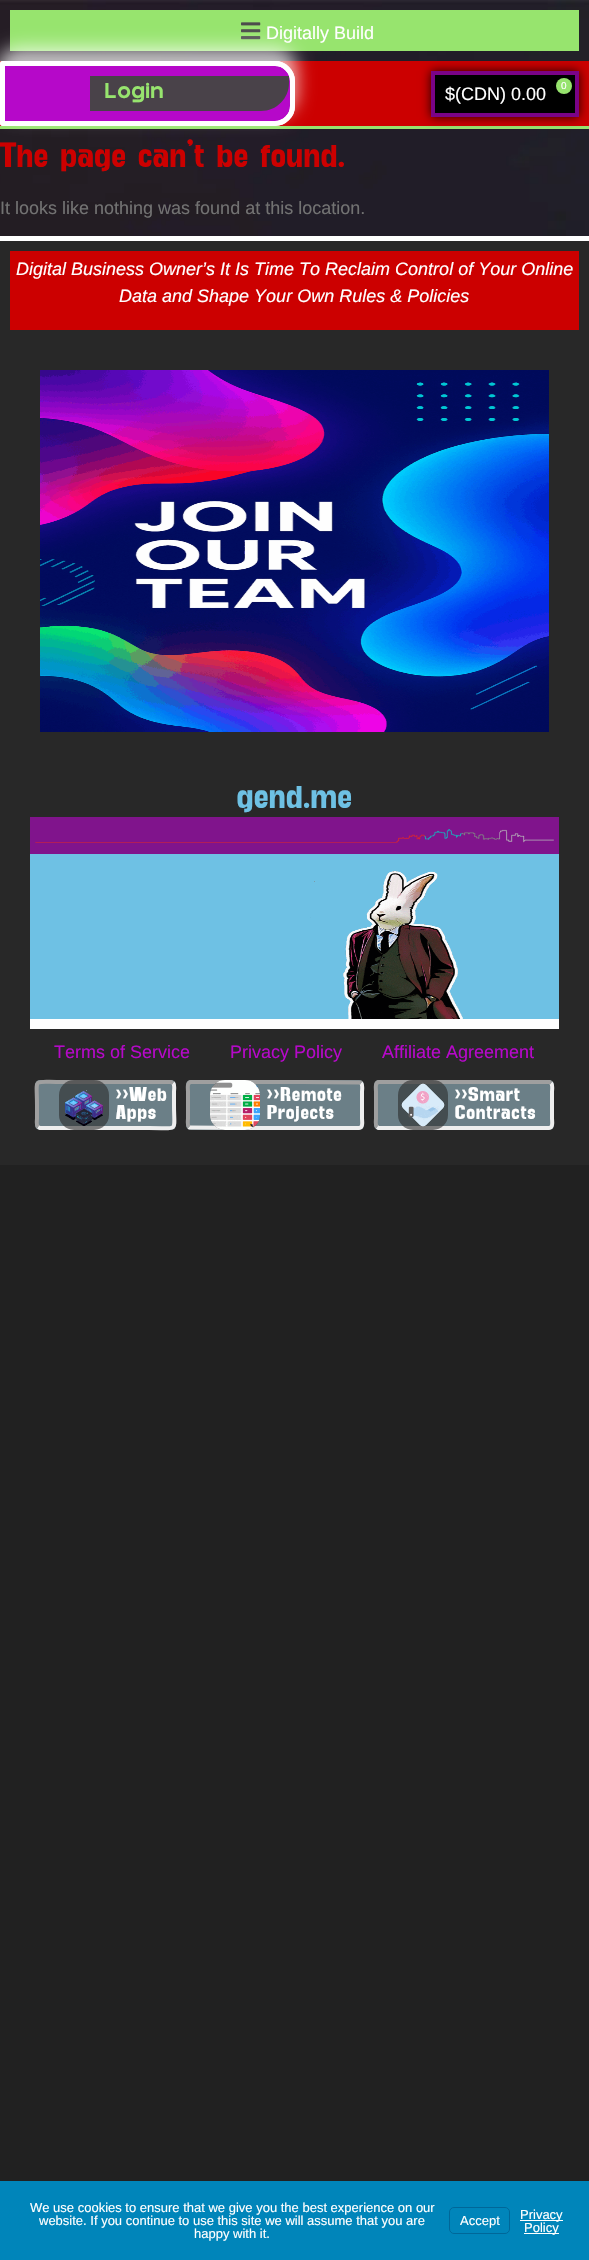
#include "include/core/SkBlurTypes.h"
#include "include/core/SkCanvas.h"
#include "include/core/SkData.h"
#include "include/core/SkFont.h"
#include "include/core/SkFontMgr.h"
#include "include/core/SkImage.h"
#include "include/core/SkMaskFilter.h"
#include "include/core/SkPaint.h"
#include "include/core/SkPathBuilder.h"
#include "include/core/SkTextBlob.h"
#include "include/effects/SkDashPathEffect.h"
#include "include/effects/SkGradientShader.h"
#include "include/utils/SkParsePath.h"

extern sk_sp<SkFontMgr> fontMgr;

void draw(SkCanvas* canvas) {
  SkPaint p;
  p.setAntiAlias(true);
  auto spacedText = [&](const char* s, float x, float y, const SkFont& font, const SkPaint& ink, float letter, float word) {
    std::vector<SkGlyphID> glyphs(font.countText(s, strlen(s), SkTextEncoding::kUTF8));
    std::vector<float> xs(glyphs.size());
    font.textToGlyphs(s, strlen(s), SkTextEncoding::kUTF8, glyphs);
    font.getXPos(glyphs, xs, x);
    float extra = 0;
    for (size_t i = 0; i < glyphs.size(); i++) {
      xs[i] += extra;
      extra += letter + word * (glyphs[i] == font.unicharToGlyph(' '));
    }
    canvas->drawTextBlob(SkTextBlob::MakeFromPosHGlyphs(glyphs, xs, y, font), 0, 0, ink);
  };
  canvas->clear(SkColorSetRGB(33, 33, 33));
  canvas->drawImageRect(SkImages::DeferredFromEncodedData(SkData::MakeFromFileName("images/1.png")), SkRect::MakeLTRB(0, 0, 589, 236), SkSamplingOptions());
  p.setColor(SkColorSetRGB(151, 228, 110));
  canvas->drawRect(SkRect::MakeLTRB(10, 10, 579, 51), p);
  canvas->drawImageRect(SkImages::DeferredFromEncodedData(SkData::MakeFromFileName("images/2.png")), SkRect::MakeLTRB(241, 22, 261, 40), SkSamplingOptions());
  p.setColor(SkColorSetRGB(204, 0, 0));
  canvas->drawRect(SkRect::MakeLTRB(0, 61, 589, 126), p);
  p.setColor(SkColorSetRGB(151, 228, 110));
  canvas->drawRect(SkRect::MakeLTRB(0, 126, 589, 129), p);
  p.setColor(SkColorSetARGB(181, 255, 255, 255));
  p.setMaskFilter(SkMaskFilter::MakeBlur(kNormal_SkBlurStyle, 8.5f));
  canvas->drawRoundRect(SkRect::MakeLTRB(-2, 47, 297, 116), 22, 22, p);
  p.setMaskFilter(nullptr);
  p.setColor(SkColorSetRGB(182, 8, 201));
  canvas->drawPath(SkPathBuilder().moveTo(3, 63.5f).lineTo(275, 63.5f).cubicTo(284.5f, 63.5f, 292.5f, 71.5f, 292.5f, 81).lineTo(292.5f, 106).cubicTo(292.5f, 115.5f, 284.5f, 123.5f, 275, 123.5f).lineTo(3, 123.5f).cubicTo(2.5f, 123.5f, 2.5f, 123.5f, 2.5f, 123).lineTo(2.5f, 64).cubicTo(2.5f, 63.5f, 2.5f, 63.5f, 3, 63.5f).close().detach(), p);
  p.setStyle(SkPaint::kStroke_Style);
  p.setStrokeWidth(5);
  p.setColor(SK_ColorWHITE);
  canvas->drawPath(SkPathBuilder().moveTo(3, 63.5f).lineTo(275, 63.5f).cubicTo(284.5f, 63.5f, 292.5f, 71.5f, 292.5f, 81).lineTo(292.5f, 106).cubicTo(292.5f, 115.5f, 284.5f, 123.5f, 275, 123.5f).lineTo(3, 123.5f).cubicTo(2.5f, 123.5f, 2.5f, 123.5f, 2.5f, 123).lineTo(2.5f, 64).cubicTo(2.5f, 63.5f, 2.5f, 63.5f, 3, 63.5f).close().detach(), p);
  canvas->drawPath(SkPathBuilder().moveTo(3, 63.5f).lineTo(275, 63.5f).cubicTo(284.5f, 63.5f, 292.5f, 71.5f, 292.5f, 81).lineTo(292.5f, 106).cubicTo(292.5f, 115.5f, 284.5f, 123.5f, 275, 123.5f).lineTo(3, 123.5f).cubicTo(2.5f, 123.5f, 2.5f, 123.5f, 2.5f, 123).lineTo(2.5f, 64).cubicTo(2.5f, 63.5f, 2.5f, 63.5f, 3, 63.5f).close().detach(), p);
  p.setStyle(SkPaint::kFill_Style);
  p.setColor(SkColorSetRGB(73, 66, 73));
  canvas->drawPath(SkPathBuilder().moveTo(90, 76).lineTo(289, 76).lineTo(289, 83).cubicTo(289, 98.5f, 276.5f, 111, 261, 111).lineTo(90, 111).close().detach(), p);
  p.setColor(SkColorSetARGB(214, 0, 0, 0));
  p.setMaskFilter(SkMaskFilter::MakeBlur(kNormal_SkBlurStyle, 5));
  canvas->drawRect(SkRect::MakeLTRB(431, 71, 579, 117), p);
  p.setMaskFilter(nullptr);
  p.setColor(SK_ColorBLACK);
  canvas->drawRect(SkRect::MakeLTRB(433, 73, 577, 115), p);
  p.setStyle(SkPaint::kStroke_Style);
  p.setStrokeWidth(4);
  p.setColor(SkColorSetRGB(122, 3, 135));
  canvas->drawRect(SkRect::MakeLTRB(433, 73, 577, 115), p);
  p.setStyle(SkPaint::kFill_Style);
  p.setColor(SkColorSetRGB(151, 228, 110));
  canvas->drawCircle(564, 86, 8, p);
  p.setColor(SkColorSetRGB(40, 40, 40));
  canvas->drawRect(SkRect::MakeLTRB(0, 241, 589, 1165), p);
  p.setColor(SK_ColorWHITE);
  canvas->drawRect(SkRect::MakeLTRB(0, 236, 589, 241), p);
  p.setColor(SkColorSetRGB(204, 0, 0));
  canvas->drawRect(SkRect::MakeLTRB(10, 251, 579, 330), p);
  canvas->drawImageRect(SkImages::DeferredFromEncodedData(SkData::MakeFromFileName("images/3.png")), SkRect::MakeLTRB(40, 370, 549, 732), SkSamplingOptions());
  p.setColor(SkColorSetRGB(128, 20, 140));
  canvas->drawRect(SkRect::MakeLTRB(30, 817, 559, 854), p);
  canvas->drawImageRect(SkImages::DeferredFromEncodedData(SkData::MakeFromFileName("images/4.png")), SkRect::MakeLTRB(35, 829, 554, 843), SkSamplingOptions());
  p.setColor(SkColorSetRGB(110, 193, 228));
  canvas->drawRect(SkRect::MakeLTRB(30, 854, 559, 1019), p);
  p.setColor(SK_ColorWHITE);
  canvas->drawRect(SkRect::MakeLTRB(30, 1019, 559, 1029), p);
  canvas->drawImageRect(SkImages::DeferredFromEncodedData(SkData::MakeFromFileName("images/5.png")), SkRect::MakeLTRB(310, 871, 463, 1019), SkSamplingOptions());
  p.setColor(SkColorSetRGB(107, 127, 135));
  canvas->drawRoundRect(SkRect::MakeLTRB(35, 1080, 176, 1130), 5, 5, p);
  p.setStyle(SkPaint::kStroke_Style);
  p.setColor(SkColorSetRGB(238, 238, 238));
  canvas->drawPath(SkPathBuilder().moveTo(173, 1083).cubicTo(175, 1085, 174, 1090.5f, 174, 1091.5f).lineTo(174, 1105).cubicTo(174, 1133.5f, 179.5f, 1128, 149, 1128).lineTo(40, 1128).lineTo(38, 1127).detach(), p);
  p.setColor(SkColorSetRGB(159, 159, 159));
  canvas->drawPath(SkPathBuilder().moveTo(38, 1127).cubicTo(36, 1125, 37, 1119.5f, 37, 1118.5f).lineTo(37, 1105).cubicTo(37, 1076.5f, 31.5f, 1082, 62, 1082).lineTo(171, 1082).lineTo(173, 1083).detach(), p);
  p.setStyle(SkPaint::kFill_Style);
  p.setColor(SkColorSetARGB(148, 40, 40, 40));
  canvas->drawRoundRect(SkRect::MakeLTRB(59, 1080, 109, 1130), 15, 15, p);
  canvas->drawImageRect(SkImages::DeferredFromEncodedData(SkData::MakeFromFileName("images/6.png")), SkRect::MakeLTRB(65, 1090, 103, 1126), SkSamplingOptions());
  p.setColor(SkColorSetRGB(107, 127, 135));
  canvas->drawRoundRect(SkRect::MakeLTRB(186, 1080, 364, 1130), 5, 5, p);
  p.setStyle(SkPaint::kStroke_Style);
  p.setColor(SkColorSetRGB(238, 238, 238));
  canvas->drawPath(SkPathBuilder().moveTo(361, 1083).cubicTo(363, 1085, 362, 1090.5f, 362, 1091.5f).lineTo(362, 1118.5f).cubicTo(362, 1120, 363.5f, 1128, 359, 1128).lineTo(247, 1128).lineTo(189.5f, 1127.5f).lineTo(189, 1127).detach(), p);
  p.setColor(SkColorSetRGB(159, 159, 159));
  canvas->drawPath(SkPathBuilder().moveTo(189, 1127).cubicTo(187, 1125, 188, 1119.5f, 188, 1118.5f).lineTo(188, 1091.5f).cubicTo(188, 1090, 186.5f, 1082, 191, 1082).lineTo(303, 1082).lineTo(360.5f, 1082.5f).lineTo(361, 1083).detach(), p);
  p.setStyle(SkPaint::kFill_Style);
  p.setColor(SkColorSetARGB(148, 40, 40, 40));
  canvas->drawRoundRect(SkRect::MakeLTRB(210, 1080, 260, 1130), 15, 15, p);
  canvas->drawImageRect(SkImages::DeferredFromEncodedData(SkData::MakeFromFileName("images/7.png")), SkRect::MakeLTRB(210, 1080, 260, 1130), SkSamplingOptions());
  p.setColor(SkColorSetRGB(107, 127, 135));
  canvas->drawRoundRect(SkRect::MakeLTRB(374, 1080, 554, 1130), 5, 5, p);
  p.setStyle(SkPaint::kStroke_Style);
  p.setColor(SkColorSetRGB(238, 238, 238));
  canvas->drawPath(SkPathBuilder().moveTo(551, 1083).cubicTo(553, 1085, 552, 1090.5f, 552, 1091.5f).lineTo(552, 1118.5f).cubicTo(552, 1120, 553.5f, 1128, 549, 1128).lineTo(378.5f, 1128).lineTo(377, 1127).detach(), p);
  p.setColor(SkColorSetRGB(159, 159, 159));
  canvas->drawPath(SkPathBuilder().moveTo(377, 1127).cubicTo(375, 1125, 376, 1119.5f, 376, 1118.5f).lineTo(376, 1091.5f).cubicTo(376, 1090, 374.5f, 1082, 379, 1082).lineTo(549.5f, 1082).lineTo(551, 1083).detach(), p);
  p.setStyle(SkPaint::kFill_Style);
  p.setColor(SkColorSetARGB(148, 40, 40, 40));
  canvas->drawRoundRect(SkRect::MakeLTRB(398, 1080, 448, 1130), 15, 15, p);
  canvas->drawImageRect(SkImages::DeferredFromEncodedData(SkData::MakeFromFileName("images/8.png")), SkRect::MakeLTRB(401, 1083, 445, 1127), SkSamplingOptions());
  p.setColor(SkColorSetRGB(0, 133, 186));
  canvas->drawRect(SkRect::MakeLTRB(0, 2181, 589, 2260), p);
  p.setStyle(SkPaint::kStroke_Style);
  p.setStrokeWidth(1);
  p.setColor(SkColorSetRGB(0, 103, 153));
  canvas->drawRoundRect(SkRect::MakeLTRB(449.5f, 2207.5f, 509.5f, 2233.5f), 4.5f, 4.5f, p);
  p.setStyle(SkPaint::kFill_Style);
  p.setColor(SK_ColorWHITE);
  canvas->drawRect(SkRect::MakeLTRB(520, 2220, 563, 2221), p);
  canvas->drawRect(SkRect::MakeLTRB(524, 2233, 559, 2234), p);
  SkFont font1(fontMgr->matchFamilyStyle("Liberation Sans", SkFontStyle::Normal()), 18);
  font1.setSubpixel(true);
  canvas->drawString("Digitally Build", 266, 39, font1, p);
  SkFont font2(fontMgr->matchFamilyStyle("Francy", SkFontStyle::Normal()), 24);
  font2.setSubpixel(true);
  p.setColor(SkColorSetRGB(151, 228, 110));
  spacedText("Login", 105, 98, font2, p, 1.5f, 0);
  p.setColor(SK_ColorWHITE);
  canvas->drawString("$(CDN) 0.00", 445, 100, font1, p);
  SkFont font3(fontMgr->matchFamilyStyle("Liberation Sans", SkFontStyle::Normal()), 10);
  font3.setSubpixel(true);
  canvas->drawString("0", 561, 89, font3, p);
  SkFont font4(fontMgr->matchFamilyStyle("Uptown", SkFontStyle::Normal()), 35);
  font4.setSubpixel(true);
  p.setColor(SkColorSetRGB(204, 0, 0));
  spacedText("The page can’t be found.", 0, 167, font4, p, 1, 1);
  p.setColor(SkColorSetRGB(114, 114, 114));
  canvas->drawString("It looks like nothing was found at this location.", 0, 214, font1, p);
  SkFont font5(fontMgr->matchFamilyStyle("Liberation Sans", SkFontStyle::Italic()), 18);
  font5.setSubpixel(true);
  p.setColor(SK_ColorWHITE);
  canvas->drawString("Digital Business Owner’s It Is Time To Reclaim Control of Your Online", 16, 275, font5, p);
  canvas->drawString("Data and Shape Your Own Rules & Policies", 119, 302, font5, p);
  p.setColor(SkColorSetRGB(110, 193, 228));
  spacedText("gend.me", 237, 808, font4, p, 1, 0);
  p.setColor(SkColorSetRGB(182, 8, 201));
  canvas->drawString("Terms of Service", 54, 1058, font1, p);
  canvas->drawString("Privacy Policy", 230, 1058, font1, p);
  canvas->drawString("Affiliate Agreement", 382, 1058, font1, p);
  SkFont font6(fontMgr->matchFamilyStyle("Uptown", SkFontStyle::Normal()), 20);
  font6.setSubpixel(true);
  p.setColor(SK_ColorWHITE);
  spacedText(">>Web", 116, 1101, font6, p, 1.25f, 0);
  spacedText("Apps", 116, 1119, font6, p, 1.25f, 0);
  spacedText(">>Remote", 267, 1101, font6, p, 1.25f, 0);
  spacedText("Projects", 267, 1119, font6, p, 1.25f, 0);
  spacedText(">>Smart", 455, 1101, font6, p, 1.25f, 0);
  spacedText("Contracts", 455, 1119, font6, p, 1.25f, 0);
  SkFont font7(fontMgr->matchFamilyStyle("Liberation Sans", SkFontStyle::Normal()), 13);
  font7.setSubpixel(true);
  canvas->drawString("We use cookies to ensure that we give you the best experience on our", 30, 2212, font7, p);
  canvas->drawString("website. If you continue to use this site we will assume that you are", 39, 2225, font7, p);
  canvas->drawString("happy with it.", 194, 2238, font7, p);
  canvas->drawString("Accept", 460, 2225, font7, p);
  canvas->drawString("Privacy", 520, 2219, font7, p);
  canvas->drawString("Policy", 524, 2232, font7, p);
}
